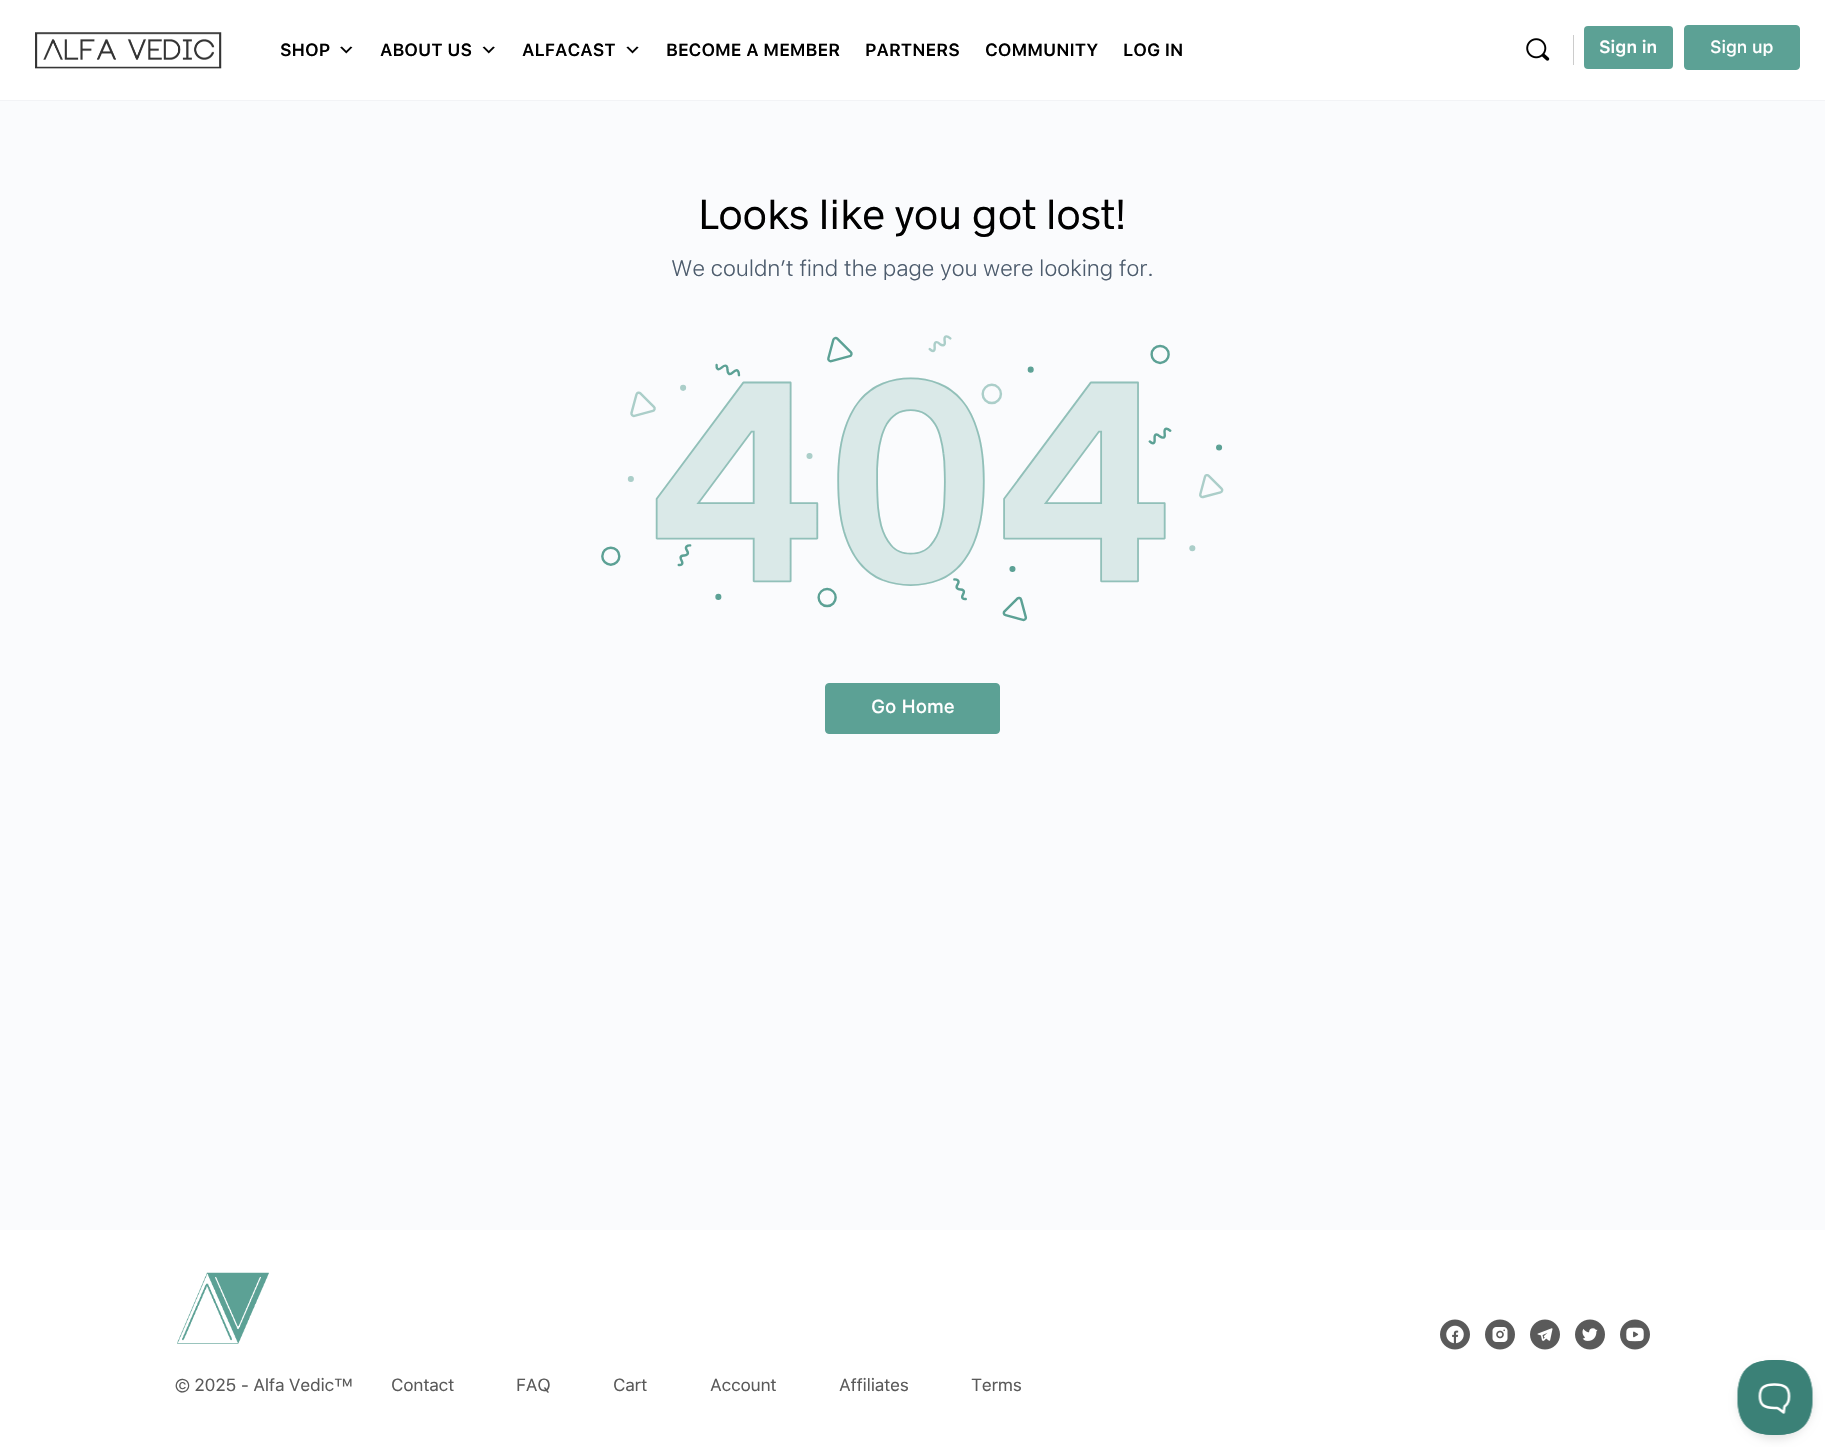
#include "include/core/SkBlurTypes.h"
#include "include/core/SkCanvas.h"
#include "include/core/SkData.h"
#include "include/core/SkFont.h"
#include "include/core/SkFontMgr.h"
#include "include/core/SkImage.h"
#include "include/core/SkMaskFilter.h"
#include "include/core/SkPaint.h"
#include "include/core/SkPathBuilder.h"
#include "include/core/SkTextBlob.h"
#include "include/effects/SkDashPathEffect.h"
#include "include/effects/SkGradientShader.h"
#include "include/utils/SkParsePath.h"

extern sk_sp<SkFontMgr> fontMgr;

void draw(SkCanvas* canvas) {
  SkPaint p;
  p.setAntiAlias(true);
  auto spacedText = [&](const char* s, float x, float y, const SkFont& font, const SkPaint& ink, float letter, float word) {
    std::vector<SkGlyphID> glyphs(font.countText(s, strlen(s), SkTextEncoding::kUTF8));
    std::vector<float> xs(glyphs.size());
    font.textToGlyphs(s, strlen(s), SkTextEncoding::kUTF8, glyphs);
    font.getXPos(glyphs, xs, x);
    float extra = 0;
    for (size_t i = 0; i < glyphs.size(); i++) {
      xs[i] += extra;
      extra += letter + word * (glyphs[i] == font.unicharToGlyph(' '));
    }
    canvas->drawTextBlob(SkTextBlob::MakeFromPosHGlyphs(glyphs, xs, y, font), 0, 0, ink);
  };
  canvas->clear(SkColorSetRGB(250, 251, 253));
  p.setColor(SkColorSetRGB(242, 243, 246));
  canvas->drawRect(SkRect::MakeLTRB(0, 100, 1825, 101), p);
  p.setColor(SK_ColorWHITE);
  canvas->drawRect(SkRect::MakeLTRB(0, 0, 1825, 100), p);
  canvas->drawImageRect(SkImages::DeferredFromEncodedData(SkData::MakeFromFileName("images/1.png")), SkRect::MakeLTRB(35, 32, 222, 69), SkSamplingOptions());
  canvas->drawImageRect(SkImages::DeferredFromEncodedData(SkData::MakeFromFileName("images/2.png")), SkRect::MakeLTRB(340, 46, 353, 54), SkSamplingOptions());
  canvas->drawImageRect(SkImages::DeferredFromEncodedData(SkData::MakeFromFileName("images/3.png")), SkRect::MakeLTRB(482, 46, 495, 54), SkSamplingOptions());
  canvas->drawImageRect(SkImages::DeferredFromEncodedData(SkData::MakeFromFileName("images/4.png")), SkRect::MakeLTRB(626, 46, 639, 54), SkSamplingOptions());
  canvas->drawImageRect(SkImages::DeferredFromEncodedData(SkData::MakeFromFileName("images/5.png")), SkRect::MakeLTRB(1526, 38, 1550, 61), SkSamplingOptions());
  p.setColor(SkColorSetRGB(204, 204, 204));
  canvas->drawRect(SkRect::MakeLTRB(1573, 35, 1574, 65), p);
  p.setColor(SkColorSetRGB(92, 161, 149));
  canvas->drawRoundRect(SkRect::MakeLTRB(1584, 26, 1673, 69), 4, 4, p);
  canvas->drawRoundRect(SkRect::MakeLTRB(1684.5f, 25.5f, 1799.5f, 69.5f), 3.5f, 3.5f, p);
  p.setStyle(SkPaint::kStroke_Style);
  p.setStrokeWidth(1);
  canvas->drawRoundRect(SkRect::MakeLTRB(1684.5f, 25.5f, 1799.5f, 69.5f), 3.5f, 3.5f, p);
  canvas->drawImageRect(SkImages::DeferredFromEncodedData(SkData::MakeFromFileName("images/6.png")), SkRect::MakeLTRB(601, 335, 1224, 622), SkSamplingOptions());
  p.setStyle(SkPaint::kFill_Style);
  canvas->drawRoundRect(SkRect::MakeLTRB(825.5f, 683.5f, 999.5f, 733.5f), 3.5f, 3.5f, p);
  p.setStyle(SkPaint::kStroke_Style);
  canvas->drawRoundRect(SkRect::MakeLTRB(825.5f, 683.5f, 999.5f, 733.5f), 3.5f, 3.5f, p);
  p.setStyle(SkPaint::kFill_Style);
  p.setColor(SK_ColorWHITE);
  canvas->drawRect(SkRect::MakeLTRB(0, 1230, 1825, 1447), p);
  canvas->drawImageRect(SkImages::DeferredFromEncodedData(SkData::MakeFromFileName("images/7.png")), SkRect::MakeLTRB(1440, 1319, 1470, 1350), SkSamplingOptions());
  canvas->drawImageRect(SkImages::DeferredFromEncodedData(SkData::MakeFromFileName("images/8.png")), SkRect::MakeLTRB(1485, 1319, 1515, 1350), SkSamplingOptions());
  canvas->drawImageRect(SkImages::DeferredFromEncodedData(SkData::MakeFromFileName("images/9.png")), SkRect::MakeLTRB(1530, 1319, 1560, 1350), SkSamplingOptions());
  canvas->drawImageRect(SkImages::DeferredFromEncodedData(SkData::MakeFromFileName("images/10.png")), SkRect::MakeLTRB(1575, 1319, 1605, 1350), SkSamplingOptions());
  canvas->drawImageRect(SkImages::DeferredFromEncodedData(SkData::MakeFromFileName("images/11.png")), SkRect::MakeLTRB(1620, 1319, 1650, 1350), SkSamplingOptions());
  canvas->drawImageRect(SkImages::DeferredFromEncodedData(SkData::MakeFromFileName("images/12.png")), SkRect::MakeLTRB(177, 1272, 269, 1344), SkSamplingOptions());
  p.setColor(SkColorSetARGB(26, 0, 0, 0));
  p.setMaskFilter(SkMaskFilter::MakeBlur(kNormal_SkBlurStyle, 4.5f));
  canvas->drawRoundRect(SkRect::MakeLTRB(1738, 1365, 1813, 1440), 37.5f, 37.5f, p);
  p.setMaskFilter(nullptr);
  canvas->drawImageRect(SkImages::DeferredFromEncodedData(SkData::MakeFromFileName("images/13.png")), SkRect::MakeLTRB(1737, 1360, 1813, 1435), SkSamplingOptions());
  SkFont font1(fontMgr->matchFamilyStyle("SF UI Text", SkFontStyle(600, SkFontStyle::kNormal_Width, SkFontStyle::kUpright_Slant)), 17.5f);
  font1.setSubpixel(true);
  p.setColor(SK_ColorBLACK);
  canvas->drawString("SHOP", 280, 56, font1, p);
  canvas->drawString("ABOUT US", 380, 56, font1, p);
  canvas->drawString("ALFACAST", 522, 56, font1, p);
  canvas->drawString("BECOME A MEMBER", 666, 56, font1, p);
  canvas->drawString("PARTNERS", 865, 56, font1, p);
  canvas->drawString("COMMUNITY", 985, 56, font1, p);
  canvas->drawString("LOG IN", 1123, 56, font1, p);
  p.setColor(SK_ColorWHITE);
  canvas->drawString("Sign in", 1599, 53, font1, p);
  SkFont font2(fontMgr->matchFamilyStyle("SF UI Text", SkFontStyle(500, SkFontStyle::kNormal_Width, SkFontStyle::kUpright_Slant)), 17.5f);
  font2.setSubpixel(true);
  canvas->drawString("Sign up", 1710, 53, font2, p);
  SkFont font3(fontMgr->matchFamilyStyle("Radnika", SkFontStyle::Normal()), 42.5f);
  font3.setSubpixel(true);
  p.setColor(SK_ColorBLACK);
  canvas->drawString("Looks like you got lost!", 698, 229, font3, p);
  SkFont font4(fontMgr->matchFamilyStyle("SF UI Text", SkFontStyle(300, SkFontStyle::kNormal_Width, SkFontStyle::kUpright_Slant)), 22.5f);
  font4.setSubpixel(true);
  p.setColor(SkColorSetRGB(77, 92, 109));
  spacedText("We couldn’t find the page you were looking for.", 671, 276, font4, p, -0.3f, 0);
  SkFont font5(fontMgr->matchFamilyStyle("SF UI Text", SkFontStyle(500, SkFontStyle::kNormal_Width, SkFontStyle::kUpright_Slant)), 18.75f);
  font5.setSubpixel(true);
  p.setColor(SK_ColorWHITE);
  canvas->drawString("Go Home", 871, 713, font5, p);
  SkFont font6(fontMgr->matchFamilyStyle("SF UI Text", SkFontStyle::Normal()), 17.5f);
  font6.setSubpixel(true);
  p.setColor(SkColorSetRGB(90, 90, 90));
  spacedText("© 2025 - Alfa Vedic™", 175, 1391, font6, p, -0.3f, 0);
  spacedText("Contact", 391, 1391, font6, p, -0.3f, 0);
  spacedText("FAQ", 516, 1391, font6, p, -0.3f, 0);
  spacedText("Cart", 613, 1391, font6, p, -0.3f, 0);
  spacedText("Account", 710, 1391, font6, p, -0.3f, 0);
  spacedText("Affiliates", 839, 1391, font6, p, -0.3f, 0);
  spacedText("Terms", 971, 1391, font6, p, -0.3f, 0);
}
